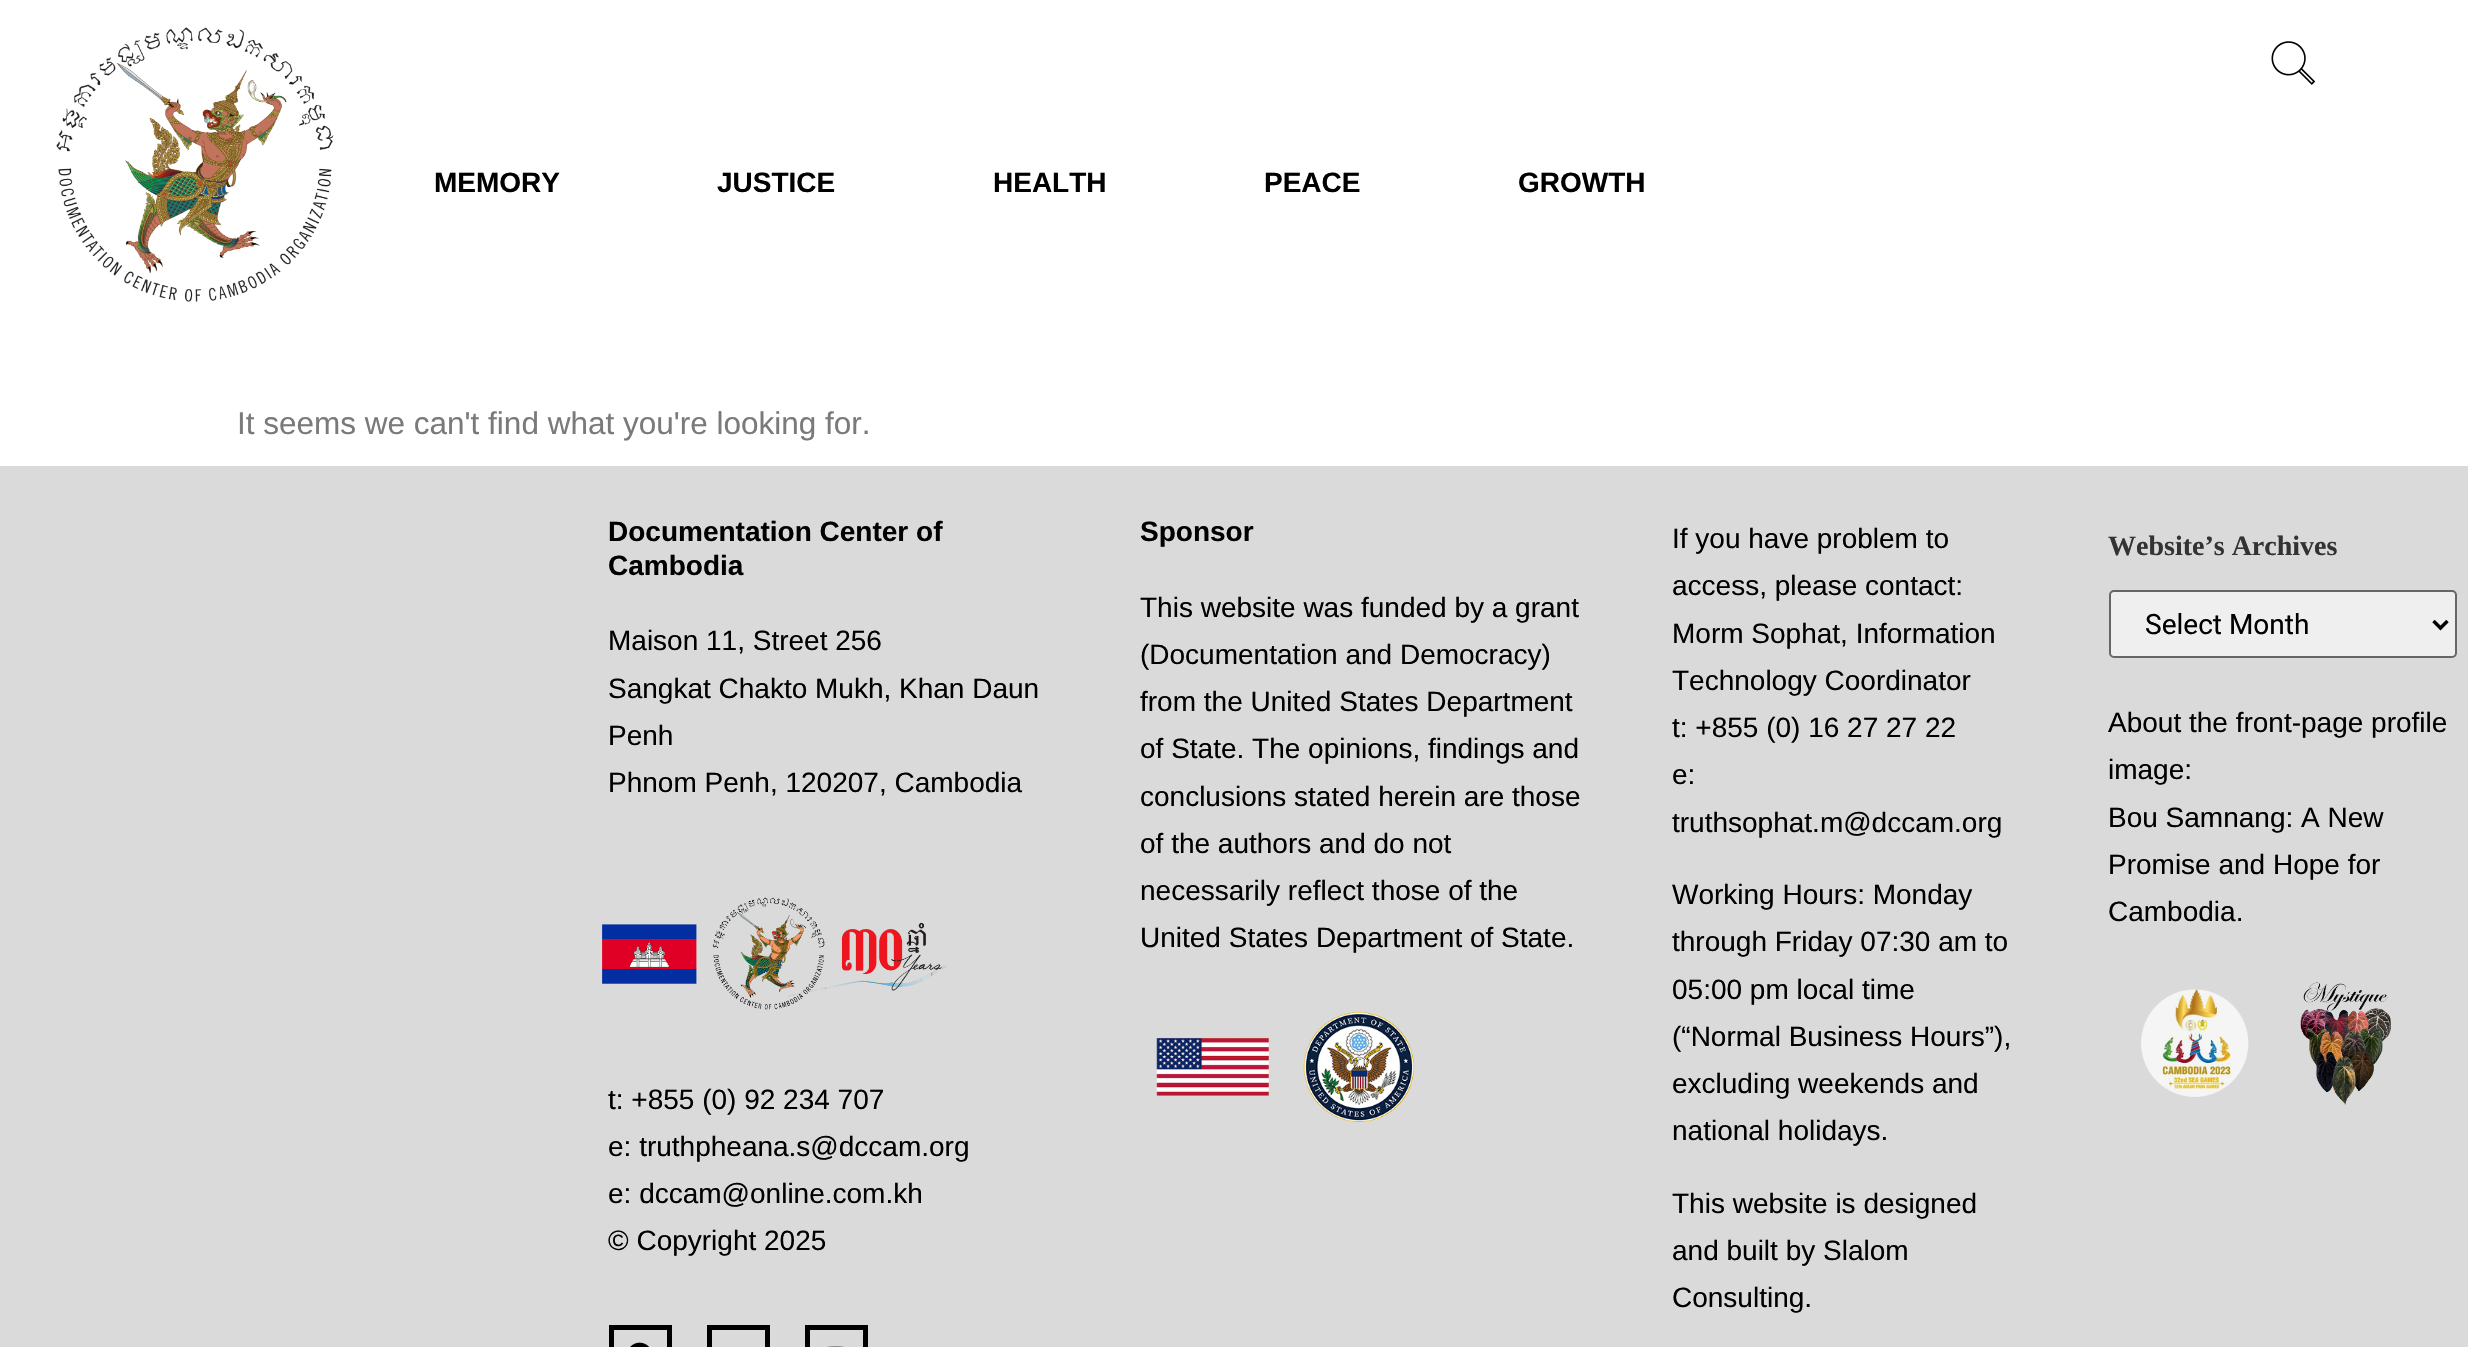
#include "include/core/SkBlurTypes.h"
#include "include/core/SkCanvas.h"
#include "include/core/SkData.h"
#include "include/core/SkFont.h"
#include "include/core/SkFontMgr.h"
#include "include/core/SkImage.h"
#include "include/core/SkMaskFilter.h"
#include "include/core/SkPaint.h"
#include "include/core/SkPathBuilder.h"
#include "include/core/SkTextBlob.h"
#include "include/effects/SkDashPathEffect.h"
#include "include/effects/SkGradientShader.h"
#include "include/utils/SkParsePath.h"

extern sk_sp<SkFontMgr> fontMgr;

void draw(SkCanvas* canvas) {
  SkPaint p;
  p.setAntiAlias(true);
  canvas->clear(SK_ColorWHITE);
  canvas->drawImageRect(SkImages::DeferredFromEncodedData(SkData::MakeFromFileName("images/1.png")), SkRect::MakeLTRB(56, 27, 334, 302), SkSamplingOptions());
  canvas->drawImageRect(SkImages::DeferredFromEncodedData(SkData::MakeFromFileName("images/2.png")), SkRect::MakeLTRB(2271, 41, 2316, 85), SkSamplingOptions());
  p.setColor(SkColorSetRGB(218, 218, 218));
  canvas->drawRect(SkRect::MakeLTRB(0, 466, 2468, 1347), p);
  canvas->drawImageRect(SkImages::DeferredFromEncodedData(SkData::MakeFromFileName("images/3.png")), SkRect::MakeLTRB(602, 924, 697, 984), SkSamplingOptions());
  canvas->drawImageRect(SkImages::DeferredFromEncodedData(SkData::MakeFromFileName("images/4.png")), SkRect::MakeLTRB(712, 897, 947, 1010), SkSamplingOptions());
  p.setStyle(SkPaint::kStroke_Style);
  p.setStrokeWidth(5);
  p.setColor(SK_ColorBLACK);
  canvas->drawRect(SkRect::MakeLTRB(611.5f, 1327.5f, 669.5f, 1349.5f), p);
  canvas->drawImageRect(SkImages::DeferredFromEncodedData(SkData::MakeFromFileName("images/5.png")), SkRect::MakeLTRB(630, 1342, 649, 1347), SkSamplingOptions());
  canvas->drawRect(SkRect::MakeLTRB(709.5f, 1327.5f, 767.5f, 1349.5f), p);
  canvas->drawRect(SkRect::MakeLTRB(807.5f, 1327.5f, 865.5f, 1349.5f), p);
  canvas->drawImageRect(SkImages::DeferredFromEncodedData(SkData::MakeFromFileName("images/6.png")), SkRect::MakeLTRB(827, 1346, 844, 1347), SkSamplingOptions());
  canvas->drawImageRect(SkImages::DeferredFromEncodedData(SkData::MakeFromFileName("images/7.png")), SkRect::MakeLTRB(1156, 1038, 1269, 1096), SkSamplingOptions());
  canvas->drawImageRect(SkImages::DeferredFromEncodedData(SkData::MakeFromFileName("images/8.png")), SkRect::MakeLTRB(1303, 1011, 1415, 1122), SkSamplingOptions());
  p.setStyle(SkPaint::kFill_Style);
  p.setColor(SkColorSetRGB(239, 239, 239));
  canvas->drawRoundRect(SkRect::MakeLTRB(2110, 591, 2456, 657), 4, 4, p);
  p.setStyle(SkPaint::kStroke_Style);
  p.setStrokeWidth(2);
  p.setColor(SkColorSetRGB(102, 102, 102));
  canvas->drawRoundRect(SkRect::MakeLTRB(2110, 591, 2456, 657), 4, 4, p);
  p.setStrokeWidth(3.5f);
  p.setColor(SK_ColorBLACK);
  canvas->drawPath(SkPathBuilder().moveTo(2433.5f, 621).lineTo(2440.5f, 628).lineTo(2447.5f, 621).detach(), p);
  canvas->drawImageRect(SkImages::DeferredFromEncodedData(SkData::MakeFromFileName("images/9.png")), SkRect::MakeLTRB(2141, 989, 2249, 1097), SkSamplingOptions());
  canvas->drawImageRect(SkImages::DeferredFromEncodedData(SkData::MakeFromFileName("images/10.png")), SkRect::MakeLTRB(2300, 982, 2391, 1105), SkSamplingOptions());
  SkFont font1(fontMgr->matchFamilyStyle("Liberation Sans", SkFontStyle::Bold()), 28);
  font1.setSubpixel(true);
  p.setStyle(SkPaint::kFill_Style);
  canvas->drawString("MEMORY", 434, 192, font1, p);
  canvas->drawString("JUSTICE", 717, 192, font1, p);
  canvas->drawString("HEALTH", 993, 192, font1, p);
  canvas->drawString("PEACE", 1264, 192, font1, p);
  canvas->drawString("GROWTH", 1518, 192, font1, p);
  SkFont font2(fontMgr->matchFamilyStyle("Liberation Sans", SkFontStyle::Normal()), 31.5f);
  font2.setSubpixel(true);
  p.setColor(SkColorSetRGB(122, 122, 122));
  canvas->drawString("It seems we can't find what you're looking for.", 237, 434, font2, p);
  p.setColor(SK_ColorBLACK);
  canvas->drawString("Documentation Center of", 608, 541, font1, p);
  canvas->drawString("Cambodia", 608, 575, font1, p);
  SkFont font3(fontMgr->matchFamilyStyle("Liberation Sans", SkFontStyle::Normal()), 28);
  font3.setSubpixel(true);
  canvas->drawString("Maison 11, Street 256", 608, 650, font3, p);
  canvas->drawString("Sangkat Chakto Mukh, Khan Daun", 608, 698, font3, p);
  canvas->drawString("Penh", 608, 745, font3, p);
  canvas->drawString("Phnom Penh, 120207, Cambodia", 608, 792, font3, p);
  canvas->drawString("t: +855 (0) 92 234 707", 608, 1109, font3, p);
  canvas->drawString("e: truthpheana.s@dccam.org", 608, 1156, font3, p);
  canvas->drawString("e: dccam@online.com.kh", 608, 1203, font3, p);
  canvas->drawString("© Copyright 2025", 608, 1250, font3, p);
  canvas->drawString("Sponsor", 1140, 541, font1, p);
  canvas->drawString("This website was funded by a grant", 1140, 617, font3, p);
  canvas->drawString("(Documentation and Democracy)", 1140, 664, font3, p);
  canvas->drawString("from the United States Department", 1140, 711, font3, p);
  canvas->drawString("of State. The opinions, findings and", 1140, 758, font3, p);
  canvas->drawString("conclusions stated herein are those", 1140, 806, font3, p);
  canvas->drawString("of the authors and do not", 1140, 853, font3, p);
  canvas->drawString("necessarily reflect those of the", 1140, 900, font3, p);
  canvas->drawString("United States Department of State.", 1140, 947, font3, p);
  canvas->drawString("If you have problem to", 1672, 548, font3, p);
  canvas->drawString("access, please contact:", 1672, 595, font3, p);
  canvas->drawString("Morm Sophat, Information", 1672, 643, font3, p);
  canvas->drawString("Technology Coordinator", 1672, 690, font3, p);
  canvas->drawString("t: +855 (0) 16 27 27 22", 1672, 737, font3, p);
  canvas->drawString("e:", 1672, 784, font3, p);
  canvas->drawString("truthsophat.m@dccam.org", 1672, 832, font3, p);
  canvas->drawString("Working Hours: Monday", 1672, 904, font3, p);
  canvas->drawString("through Friday 07:30 am to", 1672, 951, font3, p);
  canvas->drawString("05:00 pm local time", 1672, 999, font3, p);
  canvas->drawString("(“Normal Business Hours”),", 1672, 1046, font3, p);
  canvas->drawString("excluding weekends and", 1672, 1093, font3, p);
  canvas->drawString("national holidays.", 1672, 1140, font3, p);
  canvas->drawString("This website is designed", 1672, 1213, font3, p);
  canvas->drawString("and built by Slalom", 1672, 1260, font3, p);
  canvas->drawString("Consulting.", 1672, 1307, font3, p);
  SkFont font4(fontMgr->matchFamilyStyle("Liberation Serif", SkFontStyle::Bold()), 28);
  font4.setSubpixel(true);
  p.setColor(SkColorSetRGB(51, 51, 51));
  canvas->drawString("Website’s Archives", 2108, 555, font4, p);
  SkFont font5(fontMgr->matchFamilyStyle("Roboto", SkFontStyle::Normal()), 28);
  font5.setSubpixel(true);
  p.setColor(SK_ColorBLACK);
  canvas->drawString("Select Month", 2145, 634, font5, p);
  canvas->drawString("About the front-page profile", 2108, 732, font3, p);
  canvas->drawString("image:", 2108, 779, font3, p);
  canvas->drawString("Bou Samnang: A New", 2108, 827, font3, p);
  canvas->drawString("Promise and Hope for", 2108, 874, font3, p);
  canvas->drawString("Cambodia.", 2108, 921, font3, p);
}
